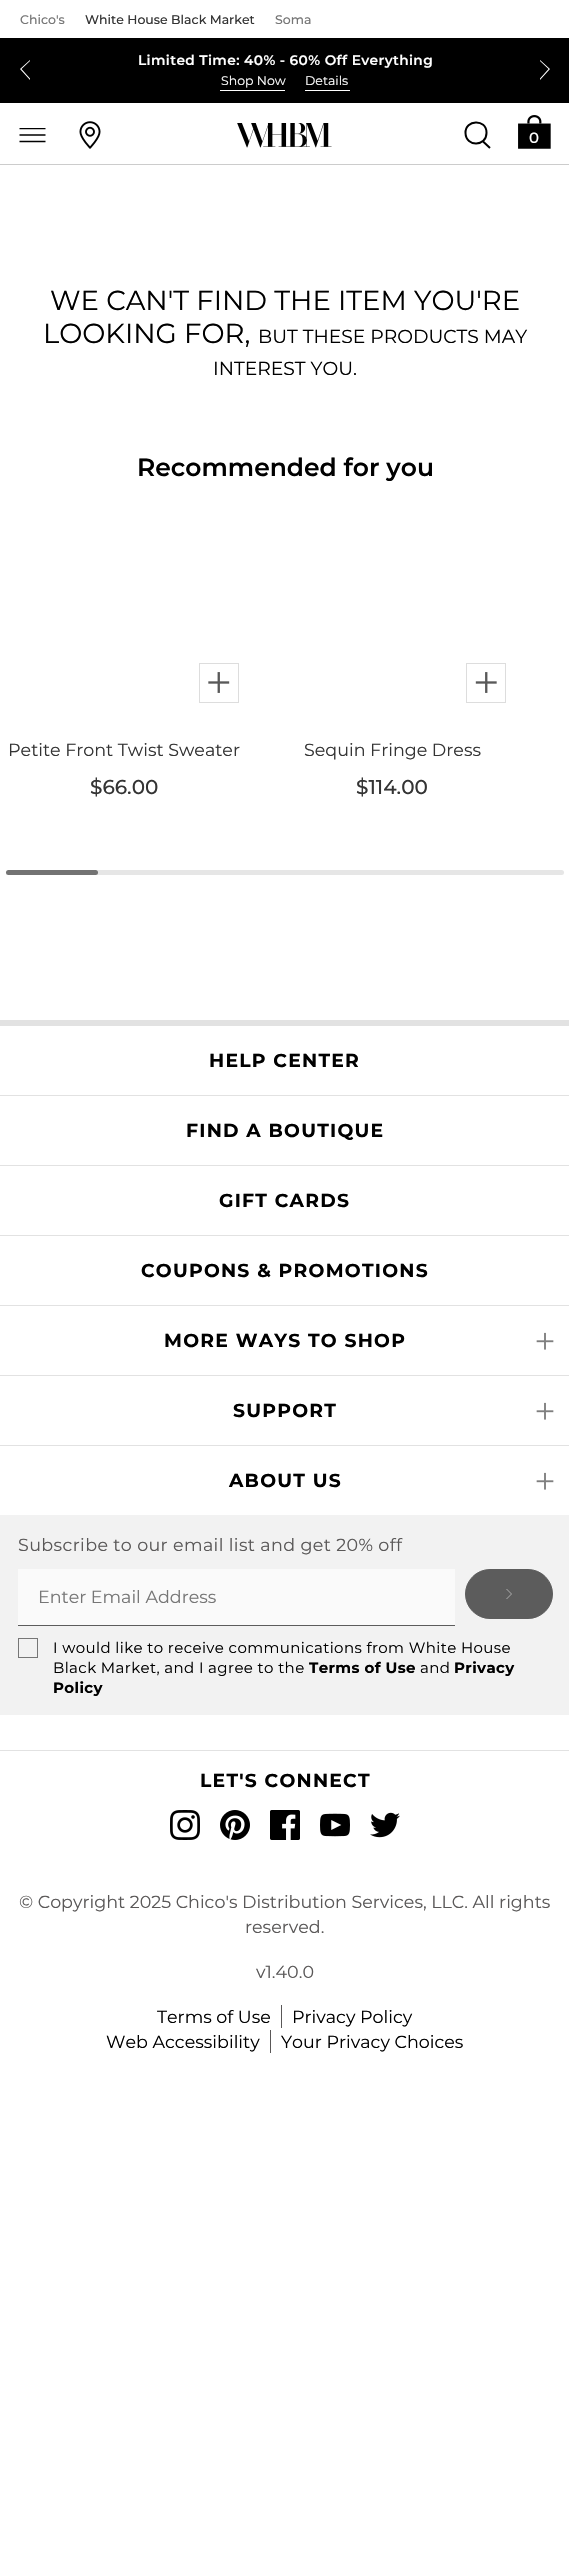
#include "include/core/SkBlurTypes.h"
#include "include/core/SkCanvas.h"
#include "include/core/SkData.h"
#include "include/core/SkFont.h"
#include "include/core/SkFontMgr.h"
#include "include/core/SkImage.h"
#include "include/core/SkMaskFilter.h"
#include "include/core/SkPaint.h"
#include "include/core/SkPathBuilder.h"
#include "include/core/SkTextBlob.h"
#include "include/effects/SkDashPathEffect.h"
#include "include/effects/SkGradientShader.h"
#include "include/utils/SkParsePath.h"

extern sk_sp<SkFontMgr> fontMgr;

void draw(SkCanvas* canvas) {
  SkPaint p;
  p.setAntiAlias(true);
  auto spacedText = [&](const char* s, float x, float y, const SkFont& font, const SkPaint& ink, float letter, float word) {
    std::vector<SkGlyphID> glyphs(font.countText(s, strlen(s), SkTextEncoding::kUTF8));
    std::vector<float> xs(glyphs.size());
    font.textToGlyphs(s, strlen(s), SkTextEncoding::kUTF8, glyphs);
    font.getXPos(glyphs, xs, x);
    float extra = 0;
    for (size_t i = 0; i < glyphs.size(); i++) {
      xs[i] += extra;
      extra += letter + word * (glyphs[i] == font.unicharToGlyph(' '));
    }
    canvas->drawTextBlob(SkTextBlob::MakeFromPosHGlyphs(glyphs, xs, y, font), 0, 0, ink);
  };
  canvas->clear(SK_ColorWHITE);
  p.setColor(SK_ColorBLACK);
  canvas->drawRect(SkRect::MakeLTRB(0, 38, 569, 103), p);
  p.setColor(SK_ColorWHITE);
  canvas->drawPath(SkPathBuilder().moveTo(30, 60).lineTo(20, 69).lineTo(30, 80).lineTo(30, 78.5f).lineTo(21.5f, 69).lineTo(30, 61).close().detach(), p);
  canvas->drawRect(SkRect::MakeLTRB(220, 90, 285, 91), p);
  canvas->drawRect(SkRect::MakeLTRB(305, 90, 350, 91), p);
  canvas->drawPath(SkPathBuilder().moveTo(540, 60).lineTo(550, 69).lineTo(540, 80).lineTo(540, 78.5f).lineTo(548.5f, 69).lineTo(540, 61).close().detach(), p);
  p.setColor(SkColorSetRGB(204, 204, 204));
  canvas->drawRect(SkRect::MakeLTRB(0, 164, 569, 165), p);
  canvas->save();
  canvas->clipRect(SkRect::MakeLTRB(18, 128, 48, 143));
  p.setStyle(SkPaint::kStroke_Style);
  p.setStrokeWidth(1.7f);
  p.setColor(SK_ColorBLACK);
  canvas->drawPath(SkPathBuilder().moveTo(19.5f, 128.5f).lineTo(45.5f, 128.5f).moveTo(19.5f, 135).lineTo(45.5f, 135).moveTo(19.5f, 141.5f).lineTo(45.5f, 141.5f).detach(), p);
  canvas->restore();
  canvas->drawImageRect(SkImages::DeferredFromEncodedData(SkData::MakeFromFileName("images/1.png")), SkRect::MakeLTRB(79, 121, 101, 149), SkSamplingOptions());
  canvas->drawImageRect(SkImages::DeferredFromEncodedData(SkData::MakeFromFileName("images/2.png")), SkRect::MakeLTRB(237, 123, 332, 148), SkSamplingOptions());
  p.setStrokeWidth(2);
  canvas->drawPath(SkPathBuilder().moveTo(486.5f, 133).cubicTo(486.5f, 146.5f, 466, 147.5f, 465.5f, 133).cubicTo(465, 119.5f, 486.5f, 118.5f, 486.5f, 132.5f).close().moveTo(490, 148).lineTo(482.5f, 141).detach(), p);
  canvas->drawImageRect(SkImages::DeferredFromEncodedData(SkData::MakeFromFileName("images/3.png")), SkRect::MakeLTRB(518, 115, 551, 149), SkSamplingOptions());
  p.setStrokeWidth(1);
  p.setColor(SkColorSetRGB(221, 221, 221));
  canvas->drawRect(SkRect::MakeLTRB(199.5f, 663.5f, 238.5f, 702.5f), p);
  canvas->drawImageRect(SkImages::DeferredFromEncodedData(SkData::MakeFromFileName("images/4.png")), SkRect::MakeLTRB(208, 672, 230, 693), SkSamplingOptions());
  canvas->drawRect(SkRect::MakeLTRB(466.5f, 663.5f, 505.5f, 702.5f), p);
  canvas->drawImageRect(SkImages::DeferredFromEncodedData(SkData::MakeFromFileName("images/5.png")), SkRect::MakeLTRB(475, 672, 497, 693), SkSamplingOptions());
  p.setStyle(SkPaint::kFill_Style);
  p.setColor(SkColorSetRGB(230, 230, 230));
  canvas->drawRoundRect(SkRect::MakeLTRB(6, 870, 564, 875), 2.5f, 2.5f, p);
  p.setColor(SkColorSetARGB(128, 0, 0, 0));
  canvas->drawRoundRect(SkRect::MakeLTRB(6, 870, 98, 875), 2.5f, 2.5f, p);
  p.setColor(SkColorSetRGB(226, 226, 226));
  canvas->drawRect(SkRect::MakeLTRB(0, 1020, 569, 1026), p);
  canvas->drawRect(SkRect::MakeLTRB(0, 1095, 569, 1096), p);
  canvas->drawRect(SkRect::MakeLTRB(0, 1165, 569, 1166), p);
  canvas->drawRect(SkRect::MakeLTRB(0, 1235, 569, 1236), p);
  canvas->drawRect(SkRect::MakeLTRB(0, 1305, 569, 1306), p);
  canvas->drawImageRect(SkImages::DeferredFromEncodedData(SkData::MakeFromFileName("images/6.png")), SkRect::MakeLTRB(536, 1332, 554, 1350), SkSamplingOptions());
  canvas->drawRect(SkRect::MakeLTRB(0, 1375, 569, 1376), p);
  canvas->drawImageRect(SkImages::DeferredFromEncodedData(SkData::MakeFromFileName("images/6.png")), SkRect::MakeLTRB(536, 1402, 554, 1420), SkSamplingOptions());
  canvas->drawRect(SkRect::MakeLTRB(0, 1445, 569, 1446), p);
  canvas->drawImageRect(SkImages::DeferredFromEncodedData(SkData::MakeFromFileName("images/6.png")), SkRect::MakeLTRB(536, 1472, 554, 1490), SkSamplingOptions());
  p.setColor(SkColorSetRGB(242, 242, 242));
  canvas->drawRect(SkRect::MakeLTRB(0, 1515, 569, 1715), p);
  p.setColor(SkColorSetRGB(250, 250, 250));
  canvas->drawRect(SkRect::MakeLTRB(18, 1569, 455, 1625), p);
  p.setColor(SkColorSetRGB(92, 92, 92));
  canvas->drawRect(SkRect::MakeLTRB(18, 1625, 455, 1626), p);
  canvas->drawRoundRect(SkRect::MakeLTRB(465.5f, 1569.5f, 552.5f, 1618.5f), 24.5f, 24.5f, p);
  p.setStyle(SkPaint::kStroke_Style);
  canvas->drawRoundRect(SkRect::MakeLTRB(465.5f, 1569.5f, 552.5f, 1618.5f), 24.5f, 24.5f, p);
  p.setStrokeWidth(0.6f);
  p.setColor(SkColorSetRGB(226, 226, 226));
  canvas->drawPath(SkPathBuilder().moveTo(506.5f, 1589).lineTo(511.5f, 1594).lineTo(506.5f, 1599).detach(), p);
  p.setStrokeWidth(1);
  p.setColor(SkColorSetRGB(118, 118, 118));
  canvas->drawRect(SkRect::MakeLTRB(18.5f, 1638.5f, 37.5f, 1657.5f), p);
  p.setStyle(SkPaint::kFill_Style);
  p.setColor(SkColorSetRGB(226, 226, 226));
  canvas->drawRect(SkRect::MakeLTRB(0, 1750, 569, 1751), p);
  canvas->drawImageRect(SkImages::DeferredFromEncodedData(SkData::MakeFromFileName("images/7.png")), SkRect::MakeLTRB(170, 1810, 200, 1840), SkSamplingOptions());
  canvas->drawImageRect(SkImages::DeferredFromEncodedData(SkData::MakeFromFileName("images/8.png")), SkRect::MakeLTRB(220, 1810, 250, 1840), SkSamplingOptions());
  canvas->drawImageRect(SkImages::DeferredFromEncodedData(SkData::MakeFromFileName("images/9.png")), SkRect::MakeLTRB(270, 1810, 300, 1840), SkSamplingOptions());
  canvas->drawImageRect(SkImages::DeferredFromEncodedData(SkData::MakeFromFileName("images/10.png")), SkRect::MakeLTRB(320, 1813, 350, 1837), SkSamplingOptions());
  canvas->drawImageRect(SkImages::DeferredFromEncodedData(SkData::MakeFromFileName("images/11.png")), SkRect::MakeLTRB(370, 1812, 400, 1838), SkSamplingOptions());
  p.setColor(SkColorSetRGB(90, 88, 88));
  canvas->drawRect(SkRect::MakeLTRB(281, 2005, 282, 2028), p);
  canvas->drawRect(SkRect::MakeLTRB(270, 2030, 271, 2053), p);
  SkFont font1(fontMgr->matchFamilyStyle("Montserrat", SkFontStyle(500, SkFontStyle::kNormal_Width, SkFontStyle::kUpright_Slant)), 12.5f);
  font1.setSubpixel(true);
  p.setColor(SkColorSetRGB(118, 118, 118));
  canvas->drawString("Chico's", 20, 24, font1, p);
  p.setColor(SkColorSetRGB(52, 52, 52));
  canvas->drawString("White House Black Market", 85, 24, font1, p);
  p.setColor(SkColorSetRGB(118, 118, 118));
  canvas->drawString("Soma", 275, 24, font1, p);
  SkFont font2(fontMgr->matchFamilyStyle("Montserrat", SkFontStyle(600, SkFontStyle::kNormal_Width, SkFontStyle::kUpright_Slant)), 13.75f);
  font2.setSubpixel(true);
  p.setColor(SK_ColorWHITE);
  spacedText("Limited Time: 40% - 60% Off Everything", 138, 65, font2, p, 0.38f, 0);
  SkFont font3(fontMgr->matchFamilyStyle("Montserrat", SkFontStyle::Normal()), 12.5f);
  font3.setSubpixel(true);
  canvas->drawString("Shop Now", 221, 85, font3, p);
  canvas->drawString("Details", 305, 85, font3, p);
  SkFont font4(fontMgr->matchFamilyStyle("Montserrat", SkFontStyle(500, SkFontStyle::kNormal_Width, SkFontStyle::kUpright_Slant)), 15);
  font4.setSubpixel(true);
  canvas->drawString("0", 529, 143, font4, p);
  SkFont font5(fontMgr->matchFamilyStyle("Montserrat", SkFontStyle::Normal()), 27.5f);
  font5.setSubpixel(true);
  p.setColor(SK_ColorBLACK);
  canvas->drawString("WE CAN'T FIND THE ITEM YOU'RE", 50, 310, font5, p);
  canvas->drawString("LOOKING FOR,", 43, 343, font5, p);
  SkFont font6(fontMgr->matchFamilyStyle("Montserrat", SkFontStyle::Normal()), 18.75f);
  font6.setSubpixel(true);
  canvas->drawString("BUT THESE PRODUCTS MAY", 258, 343, font6, p);
  canvas->drawString("INTEREST YOU.", 213, 375, font6, p);
  SkFont font7(fontMgr->matchFamilyStyle("Montserrat", SkFontStyle(600, SkFontStyle::kNormal_Width, SkFontStyle::kUpright_Slant)), 25);
  font7.setSubpixel(true);
  canvas->drawString("Recommended for you", 137, 476, font7, p);
  SkFont font8(fontMgr->matchFamilyStyle("Montserrat", SkFontStyle::Normal()), 17.5f);
  font8.setSubpixel(true);
  p.setColor(SkColorSetRGB(52, 52, 52));
  canvas->drawString("Petite Front Twist Sweater", 8, 756, font8, p);
  SkFont font9(fontMgr->matchFamilyStyle("Montserrat", SkFontStyle(500, SkFontStyle::kNormal_Width, SkFontStyle::kUpright_Slant)), 20);
  font9.setSubpixel(true);
  canvas->drawString("$66.00", 90, 794, font9, p);
  canvas->drawString("Sequin Fringe Dress", 304, 756, font8, p);
  canvas->drawString("$114.00", 356, 794, font9, p);
  SkFont font10(fontMgr->matchFamilyStyle("Montserrat", SkFontStyle::Bold()), 18.75f);
  font10.setSubpixel(true);
  p.setColor(SK_ColorBLACK);
  spacedText("HELP CENTER", 209, 1067, font10, p, 1.25f, 0);
  spacedText("FIND A BOUTIQUE", 186, 1137, font10, p, 1.25f, 0);
  spacedText("GIFT CARDS", 219, 1207, font10, p, 1.25f, 0);
  spacedText("COUPONS & PROMOTIONS", 141, 1277, font10, p, 1.25f, 0);
  spacedText("MORE WAYS TO SHOP", 164, 1347, font10, p, 1.25f, 0);
  spacedText("SUPPORT", 233, 1417, font10, p, 1.25f, 0);
  spacedText("ABOUT US", 229, 1487, font10, p, 1.25f, 0);
  p.setColor(SkColorSetRGB(90, 88, 88));
  spacedText("Subscribe to our email list and get 20% off", 18, 1551, font8, p, 0.38f, 0);
  p.setColor(SkColorSetRGB(118, 118, 118));
  canvas->drawString("Enter Email Address", 38, 1603, font8, p);
  SkFont font11(fontMgr->matchFamilyStyle("Montserrat", SkFontStyle::Normal()), 15);
  font11.setSubpixel(true);
  p.setColor(SK_ColorBLACK);
  spacedText("I would like to receive communications from White House", 53, 1653, font11, p, 0.38f, 0);
  spacedText("Black Market, and I agree to the", 53, 1673, font11, p, 0.38f, 0);
  SkFont font12(fontMgr->matchFamilyStyle("Montserrat", SkFontStyle::Bold()), 15);
  font12.setSubpixel(true);
  spacedText("Terms of Use", 309, 1673, font12, p, 0.38f, 0);
  spacedText("and", 420, 1673, font11, p, 0.38f, 0);
  spacedText("Privacy", 454, 1673, font12, p, 0.38f, 0);
  spacedText("Policy", 53, 1693, font12, p, 0.38f, 0);
  spacedText("LET'S CONNECT", 200, 1787, font10, p, 1.25f, 0);
  p.setColor(SkColorSetRGB(90, 88, 88));
  canvas->drawString("© Copyright 2025 Chico's Distribution Services, LLC. All rights", 19, 1908, font8, p);
  canvas->drawString("reserved.", 245, 1933, font8, p);
  canvas->drawString("v1.40.0", 256, 1978, font8, p);
  p.setColor(SK_ColorBLACK);
  canvas->drawString("Terms of Use", 157, 2023, font8, p);
  canvas->drawString("Privacy Policy", 292, 2023, font8, p);
  canvas->drawString("Web Accessibility", 106, 2048, font8, p);
  canvas->drawString("Your Privacy Choices", 281, 2048, font8, p);
}
